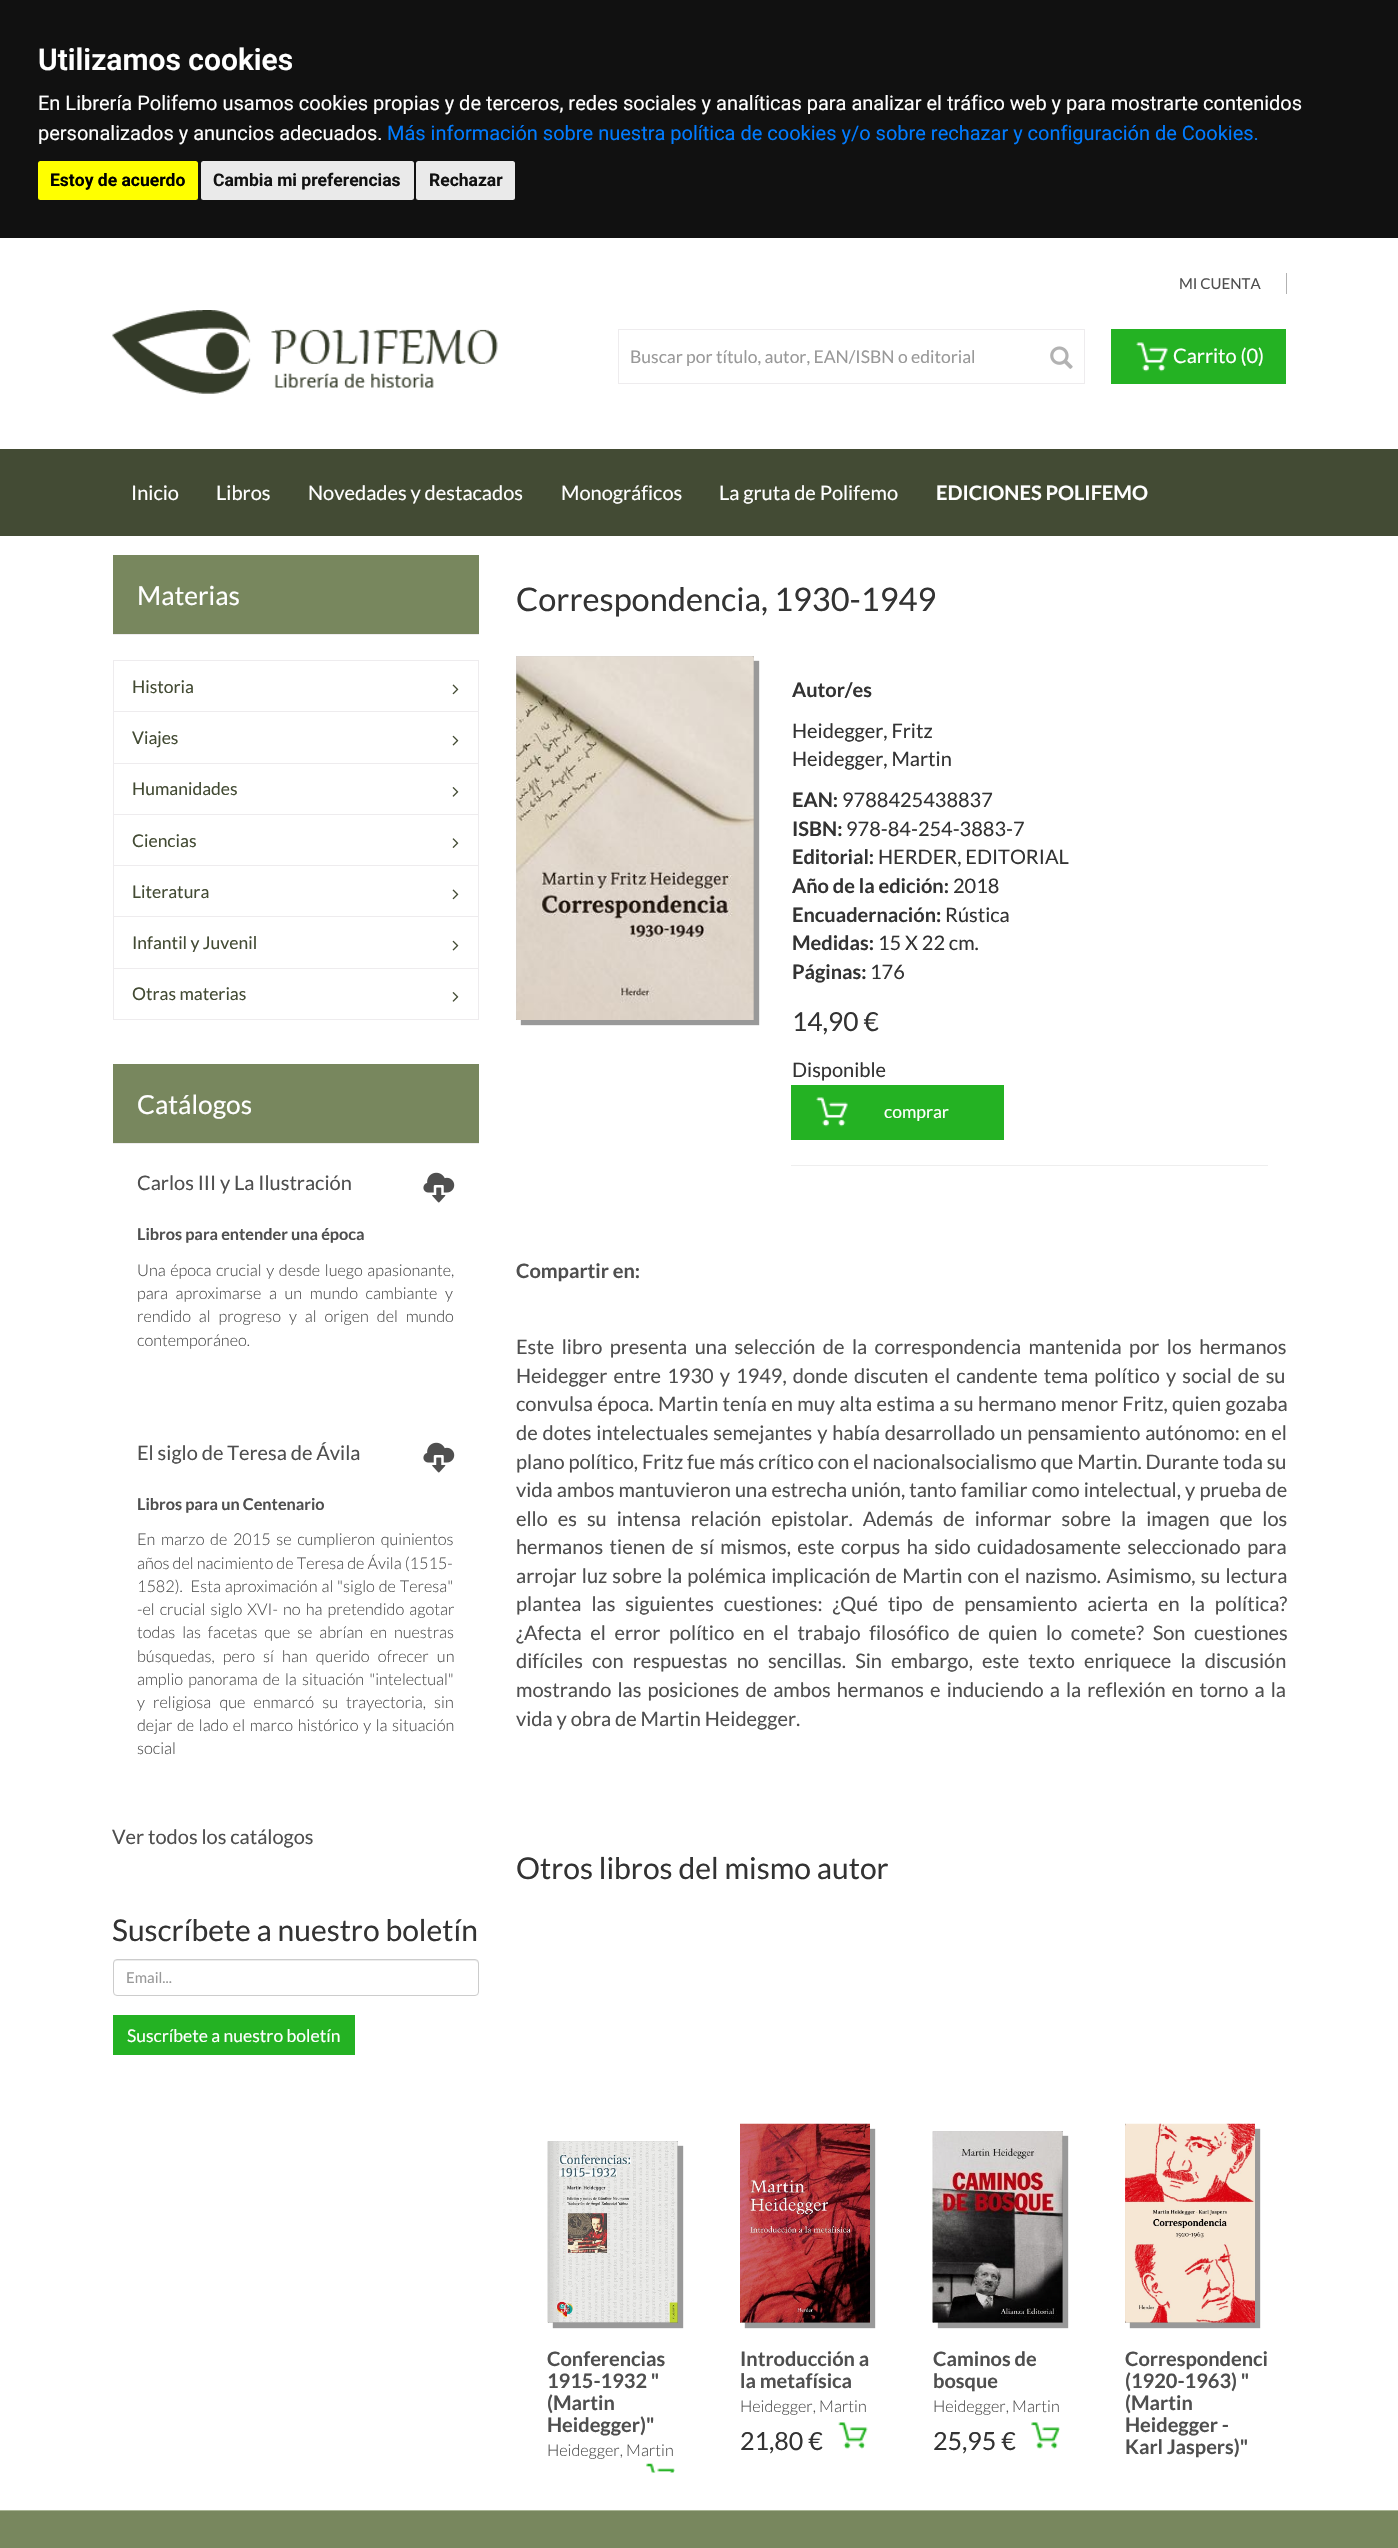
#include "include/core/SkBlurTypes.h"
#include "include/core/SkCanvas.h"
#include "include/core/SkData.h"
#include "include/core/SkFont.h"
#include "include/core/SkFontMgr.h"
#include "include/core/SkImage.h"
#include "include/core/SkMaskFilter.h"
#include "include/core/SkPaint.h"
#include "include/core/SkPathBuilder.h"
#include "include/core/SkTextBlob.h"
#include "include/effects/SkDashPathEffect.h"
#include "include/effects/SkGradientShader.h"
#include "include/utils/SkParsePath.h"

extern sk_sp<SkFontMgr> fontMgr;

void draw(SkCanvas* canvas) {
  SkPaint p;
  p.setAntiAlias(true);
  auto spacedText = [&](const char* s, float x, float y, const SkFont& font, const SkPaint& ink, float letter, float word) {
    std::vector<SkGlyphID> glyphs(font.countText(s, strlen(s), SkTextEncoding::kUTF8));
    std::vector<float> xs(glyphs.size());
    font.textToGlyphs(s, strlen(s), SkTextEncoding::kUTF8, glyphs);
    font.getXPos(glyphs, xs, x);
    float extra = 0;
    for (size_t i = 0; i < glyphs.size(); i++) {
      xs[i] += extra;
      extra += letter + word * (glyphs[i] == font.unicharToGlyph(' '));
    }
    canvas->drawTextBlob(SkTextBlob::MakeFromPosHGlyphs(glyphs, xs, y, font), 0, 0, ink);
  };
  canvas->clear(SK_ColorWHITE);
  p.setColor(SkColorSetRGB(17, 17, 17));
  canvas->drawRect(SkRect::MakeLTRB(0, 0, 1398, 238), p);
  p.setColor(SkColorSetRGB(255, 255, 0));
  canvas->drawRoundRect(SkRect::MakeLTRB(38, 161, 198, 200), 2.5f, 2.5f, p);
  p.setColor(SkColorSetRGB(234, 234, 234));
  canvas->drawRoundRect(SkRect::MakeLTRB(201, 161, 414, 200), 2.5f, 2.5f, p);
  canvas->drawRoundRect(SkRect::MakeLTRB(416, 161, 515, 200), 2.5f, 2.5f, p);
  p.setColor(SkColorSetRGB(178, 178, 178));
  canvas->drawRect(SkRect::MakeLTRB(1286, 273, 1287, 294), p);
  canvas->drawImageRect(SkImages::DeferredFromEncodedData(SkData::MakeFromFileName("images/1.png")), SkRect::MakeLTRB(112, 310, 498, 394), SkSamplingOptions());
  p.setStyle(SkPaint::kStroke_Style);
  p.setStrokeWidth(1);
  p.setColor(SkColorSetRGB(238, 236, 238));
  canvas->drawRect(SkRect::MakeLTRB(618.5f, 329.5f, 1084.5f, 383.5f), p);
  canvas->drawImageRect(SkImages::DeferredFromEncodedData(SkData::MakeFromFileName("images/2.png")), SkRect::MakeLTRB(1050, 346, 1073, 369), SkSamplingOptions());
  p.setStyle(SkPaint::kFill_Style);
  p.setColor(SkColorSetRGB(36, 178, 35));
  canvas->drawRect(SkRect::MakeLTRB(1111, 329, 1286, 384), p);
  canvas->drawImageRect(SkImages::DeferredFromEncodedData(SkData::MakeFromFileName("images/3.png")), SkRect::MakeLTRB(1136, 342, 1168, 372), SkSamplingOptions());
  p.setColor(SkColorSetRGB(67, 75, 52));
  canvas->drawRect(SkRect::MakeLTRB(0, 449, 1398, 536), p);
  p.setColor(SkColorSetRGB(120, 135, 94));
  canvas->drawRect(SkRect::MakeLTRB(113, 555, 479, 634), p);
  p.setColor(SkColorSetRGB(238, 236, 238));
  canvas->drawRect(SkRect::MakeLTRB(113, 634, 479, 635), p);
  p.setStyle(SkPaint::kStroke_Style);
  canvas->drawRect(SkRect::MakeLTRB(113.5f, 660.5f, 478.5f, 1019.5f), p);
  p.setStyle(SkPaint::kFill_Style);
  canvas->drawRect(SkRect::MakeLTRB(114, 711, 478, 712), p);
  canvas->drawImageRect(SkImages::DeferredFromEncodedData(SkData::MakeFromFileName("images/4.png")), SkRect::MakeLTRB(452, 684, 459, 695), SkSamplingOptions());
  canvas->drawRect(SkRect::MakeLTRB(114, 763, 478, 764), p);
  canvas->drawImageRect(SkImages::DeferredFromEncodedData(SkData::MakeFromFileName("images/5.png")), SkRect::MakeLTRB(452, 735, 459, 746), SkSamplingOptions());
  canvas->drawRect(SkRect::MakeLTRB(114, 814, 478, 815), p);
  canvas->drawImageRect(SkImages::DeferredFromEncodedData(SkData::MakeFromFileName("images/6.png")), SkRect::MakeLTRB(452, 787, 459, 797), SkSamplingOptions());
  canvas->drawRect(SkRect::MakeLTRB(114, 865, 478, 866), p);
  canvas->drawImageRect(SkImages::DeferredFromEncodedData(SkData::MakeFromFileName("images/7.png")), SkRect::MakeLTRB(452, 838, 459, 848), SkSamplingOptions());
  canvas->drawRect(SkRect::MakeLTRB(114, 916, 478, 917), p);
  canvas->drawImageRect(SkImages::DeferredFromEncodedData(SkData::MakeFromFileName("images/4.png")), SkRect::MakeLTRB(452, 889, 459, 900), SkSamplingOptions());
  canvas->drawRect(SkRect::MakeLTRB(114, 968, 478, 969), p);
  canvas->drawImageRect(SkImages::DeferredFromEncodedData(SkData::MakeFromFileName("images/5.png")), SkRect::MakeLTRB(452, 940, 459, 951), SkSamplingOptions());
  canvas->drawImageRect(SkImages::DeferredFromEncodedData(SkData::MakeFromFileName("images/6.png")), SkRect::MakeLTRB(452, 992, 459, 1002), SkSamplingOptions());
  p.setColor(SkColorSetRGB(120, 135, 94));
  canvas->drawRect(SkRect::MakeLTRB(113, 1064, 479, 1143), p);
  p.setColor(SkColorSetRGB(238, 236, 238));
  canvas->drawRect(SkRect::MakeLTRB(113, 1143, 479, 1144), p);
  canvas->drawImageRect(SkImages::DeferredFromEncodedData(SkData::MakeFromFileName("images/8.png")), SkRect::MakeLTRB(423, 1172, 455, 1203), SkSamplingOptions());
  canvas->drawImageRect(SkImages::DeferredFromEncodedData(SkData::MakeFromFileName("images/8.png")), SkRect::MakeLTRB(423, 1442, 455, 1473), SkSamplingOptions());
  p.setColor(SkColorSetRGB(236, 236, 236));
  canvas->drawPath(SkPathBuilder().moveTo(116, 1961).lineTo(475, 1961).cubicTo(476, 1961, 478, 1962, 478, 1964).cubicTo(478, 1962, 478, 1960, 476, 1960).lineTo(116, 1960).cubicTo(114, 1960, 114, 1962, 114, 1964).cubicTo(114, 1962, 115, 1961, 116, 1961).close().detach(), p);
  p.setStyle(SkPaint::kStroke_Style);
  p.setColor(SkColorSetRGB(204, 204, 204));
  canvas->drawRoundRect(SkRect::MakeLTRB(113.5f, 1959.5f, 478.5f, 1995.5f), 3.5f, 3.5f, p);
  p.setStyle(SkPaint::kFill_Style);
  p.setColor(SkColorSetRGB(36, 178, 35));
  canvas->drawRect(SkRect::MakeLTRB(113, 2015, 355, 2055), p);
  p.setColor(SkColorSetARGB(102, 0, 0, 0));
  p.setMaskFilter(SkMaskFilter::MakeBlur(kNormal_SkBlurStyle, 0.5f));
  canvas->drawRect(SkRect::MakeLTRB(521, 661, 759, 1025), p);
  p.setMaskFilter(nullptr);
  canvas->save();
  canvas->clipRect(SkRect::MakeLTRB(516, 656, 754, 1020));
  p.setColor(SkColorSetRGB(204, 204, 204));
  canvas->drawPath(SkPathBuilder(SkPathFillType::kEvenOdd).moveTo(392, 532).lineTo(878, 532).lineTo(878, 1144).lineTo(392, 1144).close().moveTo(518, 658).lineTo(755, 658).lineTo(755, 1021).lineTo(518, 1021).close().detach(), p);
  p.setColor(SkColorSetARGB(51, 0, 0, 0));
  canvas->drawPath(SkPathBuilder(SkPathFillType::kEvenOdd).moveTo(392, 532).lineTo(878, 532).lineTo(878, 1144).lineTo(392, 1144).close().moveTo(515, 655).lineTo(752, 655).lineTo(752, 1019).lineTo(515, 1019).close().detach(), p);
  canvas->restore();
  canvas->drawImageRect(SkImages::DeferredFromEncodedData(SkData::MakeFromFileName("images/9.png")), SkRect::MakeLTRB(516, 656, 754, 1020), SkSamplingOptions());
  p.setColor(SkColorSetRGB(36, 178, 35));
  canvas->drawRect(SkRect::MakeLTRB(791, 1085, 1004, 1140), p);
  canvas->drawImageRect(SkImages::DeferredFromEncodedData(SkData::MakeFromFileName("images/3.png")), SkRect::MakeLTRB(816, 1097, 848, 1127), SkSamplingOptions());
  p.setColor(SkColorSetRGB(238, 238, 238));
  canvas->drawRect(SkRect::MakeLTRB(791, 1165, 1268, 1166), p);
  p.setColor(SkColorSetARGB(102, 0, 0, 0));
  p.setMaskFilter(SkMaskFilter::MakeBlur(kNormal_SkBlurStyle, 0.5f));
  canvas->drawRect(SkRect::MakeLTRB(553, 2146, 683, 2328), p);
  p.setMaskFilter(nullptr);
  canvas->save();
  canvas->clipRect(SkRect::MakeLTRB(548, 2141, 678, 2323));
  p.setColor(SkColorSetRGB(204, 204, 204));
  canvas->drawPath(SkPathBuilder(SkPathFillType::kEvenOdd).moveTo(424, 2018).lineTo(801, 2018).lineTo(801, 2446).lineTo(424, 2446).close().moveTo(549, 2142).lineTo(679, 2142).lineTo(679, 2324).lineTo(549, 2324).close().detach(), p);
  p.setColor(SkColorSetARGB(51, 0, 0, 0));
  canvas->drawPath(SkPathBuilder(SkPathFillType::kEvenOdd).moveTo(424, 2018).lineTo(801, 2018).lineTo(801, 2446).lineTo(424, 2446).close().moveTo(546, 2140).lineTo(676, 2140).lineTo(676, 2321).lineTo(546, 2321).close().detach(), p);
  canvas->restore();
  canvas->drawImageRect(SkImages::DeferredFromEncodedData(SkData::MakeFromFileName("images/10.png")), SkRect::MakeLTRB(547, 2141, 678, 2323), SkSamplingOptions());
  canvas->drawImageRect(SkImages::DeferredFromEncodedData(SkData::MakeFromFileName("images/11.png")), SkRect::MakeLTRB(646, 2463, 675, 2473), SkSamplingOptions());
  p.setColor(SkColorSetARGB(102, 0, 0, 0));
  p.setMaskFilter(SkMaskFilter::MakeBlur(kNormal_SkBlurStyle, 0.5f));
  canvas->drawRect(SkRect::MakeLTRB(745, 2129, 875, 2328), p);
  p.setMaskFilter(nullptr);
  canvas->save();
  canvas->clipRect(SkRect::MakeLTRB(740, 2124, 870, 2323));
  p.setColor(SkColorSetRGB(204, 204, 204));
  canvas->drawPath(SkPathBuilder(SkPathFillType::kEvenOdd).moveTo(616, 2000).lineTo(994, 2000).lineTo(994, 2446).lineTo(616, 2446).close().moveTo(741, 2125).lineTo(871, 2125).lineTo(871, 2324).lineTo(741, 2324).close().detach(), p);
  p.setColor(SkColorSetARGB(51, 0, 0, 0));
  canvas->drawPath(SkPathBuilder(SkPathFillType::kEvenOdd).moveTo(616, 2000).lineTo(994, 2000).lineTo(994, 2446).lineTo(616, 2446).close().moveTo(739, 2122).lineTo(869, 2122).lineTo(869, 2321).lineTo(739, 2321).close().detach(), p);
  canvas->restore();
  canvas->drawImageRect(SkImages::DeferredFromEncodedData(SkData::MakeFromFileName("images/12.png")), SkRect::MakeLTRB(740, 2123, 870, 2323), SkSamplingOptions());
  canvas->drawImageRect(SkImages::DeferredFromEncodedData(SkData::MakeFromFileName("images/13.png")), SkRect::MakeLTRB(838, 2422, 868, 2449), SkSamplingOptions());
  p.setColor(SkColorSetARGB(102, 0, 0, 0));
  p.setMaskFilter(SkMaskFilter::MakeBlur(kNormal_SkBlurStyle, 0.5f));
  canvas->drawRect(SkRect::MakeLTRB(938, 2136, 1068, 2328), p);
  p.setMaskFilter(nullptr);
  canvas->save();
  canvas->clipRect(SkRect::MakeLTRB(933, 2131, 1063, 2323));
  p.setColor(SkColorSetRGB(204, 204, 204));
  canvas->drawPath(SkPathBuilder(SkPathFillType::kEvenOdd).moveTo(809, 2008).lineTo(1186, 2008).lineTo(1186, 2446).lineTo(809, 2446).close().moveTo(934, 2132).lineTo(1064, 2132).lineTo(1064, 2324).lineTo(934, 2324).close().detach(), p);
  p.setColor(SkColorSetARGB(51, 0, 0, 0));
  canvas->drawPath(SkPathBuilder(SkPathFillType::kEvenOdd).moveTo(809, 2008).lineTo(1186, 2008).lineTo(1186, 2446).lineTo(809, 2446).close().moveTo(931, 2130).lineTo(1061, 2130).lineTo(1061, 2321).lineTo(931, 2321).close().detach(), p);
  canvas->restore();
  canvas->drawImageRect(SkImages::DeferredFromEncodedData(SkData::MakeFromFileName("images/14.png")), SkRect::MakeLTRB(932, 2131, 1063, 2323), SkSamplingOptions());
  canvas->drawImageRect(SkImages::DeferredFromEncodedData(SkData::MakeFromFileName("images/15.png")), SkRect::MakeLTRB(1031, 2422, 1060, 2449), SkSamplingOptions());
  p.setColor(SkColorSetARGB(102, 0, 0, 0));
  p.setMaskFilter(SkMaskFilter::MakeBlur(kNormal_SkBlurStyle, 0.5f));
  canvas->drawRect(SkRect::MakeLTRB(1130, 2129, 1260, 2328), p);
  p.setMaskFilter(nullptr);
  canvas->save();
  canvas->clipRect(SkRect::MakeLTRB(1125, 2124, 1255, 2323));
  p.setColor(SkColorSetRGB(204, 204, 204));
  canvas->drawPath(SkPathBuilder(SkPathFillType::kEvenOdd).moveTo(1001, 2000).lineTo(1379, 2000).lineTo(1379, 2446).lineTo(1001, 2446).close().moveTo(1126, 2125).lineTo(1256, 2125).lineTo(1256, 2324).lineTo(1126, 2324).close().detach(), p);
  p.setColor(SkColorSetARGB(51, 0, 0, 0));
  canvas->drawPath(SkPathBuilder(SkPathFillType::kEvenOdd).moveTo(1001, 2000).lineTo(1379, 2000).lineTo(1379, 2446).lineTo(1001, 2446).close().moveTo(1124, 2122).lineTo(1254, 2122).lineTo(1254, 2321).lineTo(1124, 2321).close().detach(), p);
  canvas->restore();
  canvas->drawImageRect(SkImages::DeferredFromEncodedData(SkData::MakeFromFileName("images/16.png")), SkRect::MakeLTRB(1125, 2123, 1255, 2323), SkSamplingOptions());
  p.setColor(SkColorSetRGB(120, 135, 94));
  canvas->drawRect(SkRect::MakeLTRB(0, 2511, 1398, 2548), p);
  p.setColor(SkColorSetRGB(170, 182, 149));
  canvas->drawRect(SkRect::MakeLTRB(0, 2510, 1398, 2511), p);
  SkFont font1(fontMgr->matchFamilyStyle("Roboto", SkFontStyle(600, SkFontStyle::kNormal_Width, SkFontStyle::kUpright_Slant)), 30);
  font1.setSubpixel(true);
  p.setColor(SK_ColorWHITE);
  canvas->drawString("Utilizamos cookies", 38, 70, font1, p);
  SkFont font2(fontMgr->matchFamilyStyle("Roboto", SkFontStyle::Normal()), 20);
  font2.setSubpixel(true);
  canvas->drawString("En Librería Polifemo usamos cookies propias y de terceros, redes sociales y analíticas para analizar el tráfico web y para mostrarte contenidos", 38, 110, font2, p);
  canvas->drawString("personalizados y anuncios adecuados.", 38, 140, font2, p);
  p.setColor(SkColorSetRGB(0, 123, 255));
  canvas->drawString("Más información sobre nuestra política de cookies y/o sobre rechazar y configuración de Cookies.", 387, 140, font2, p);
  SkFont font3(fontMgr->matchFamilyStyle("Roboto", SkFontStyle::Bold()), 17.5f);
  font3.setSubpixel(true);
  p.setColor(SK_ColorBLACK);
  canvas->drawString("Estoy de acuerdo", 50, 186, font3, p);
  p.setColor(SkColorSetRGB(17, 17, 17));
  canvas->drawString("Cambia mi preferencias", 213, 186, font3, p);
  canvas->drawString("Rechazar", 429, 186, font3, p);
  SkFont font4(fontMgr->matchFamilyStyle("Lato", SkFontStyle::Normal()), 15);
  font4.setSubpixel(true);
  p.setColor(SkColorSetRGB(79, 79, 79));
  canvas->drawString("MI CUENTA", 1179, 289, font4, p);
  SkFont font5(fontMgr->matchFamilyStyle("Lato", SkFontStyle::Normal()), 17.5f);
  font5.setSubpixel(true);
  p.setColor(SkColorSetRGB(153, 153, 153));
  canvas->drawString("Buscar por título, autor, EAN/ISBN o editorial", 630, 363, font5, p);
  SkFont font6(fontMgr->matchFamilyStyle("Lato", SkFontStyle::Normal()), 20);
  font6.setSubpixel(true);
  p.setColor(SK_ColorWHITE);
  canvas->drawString("Carrito (0)", 1173, 363, font6, p);
  canvas->drawString("Inicio", 131, 500, font6, p);
  canvas->drawString("Libros", 216, 500, font6, p);
  canvas->drawString("Novedades y destacados", 308, 500, font6, p);
  canvas->drawString("Monográficos", 561, 500, font6, p);
  canvas->drawString("La gruta de Polifemo", 719, 500, font6, p);
  SkFont font7(fontMgr->matchFamilyStyle("Lato", SkFontStyle::Bold()), 20);
  font7.setSubpixel(true);
  canvas->drawString("EDICIONES POLIFEMO", 936, 500, font7, p);
  SkFont font8(fontMgr->matchFamilyStyle("Lato", SkFontStyle::Normal()), 26.25f);
  font8.setSubpixel(true);
  canvas->drawString("Materias", 137, 605, font8, p);
  p.setColor(SkColorSetRGB(67, 75, 52));
  canvas->drawString("Historia", 132, 693, font5, p);
  canvas->drawString("Viajes", 132, 744, font5, p);
  canvas->drawString("Humanidades", 132, 795, font5, p);
  canvas->drawString("Ciencias", 132, 847, font5, p);
  canvas->drawString("Literatura", 132, 898, font5, p);
  canvas->drawString("Infantil y Juvenil", 132, 949, font5, p);
  canvas->drawString("Otras materias", 132, 1000, font5, p);
  p.setColor(SK_ColorWHITE);
  canvas->drawString("Catálogos", 137, 1114, font8, p);
  p.setColor(SkColorSetRGB(79, 79, 79));
  canvas->drawString("Carlos III y La Ilustración", 137, 1190, font6, p);
  SkFont font9(fontMgr->matchFamilyStyle("Lato", SkFontStyle::Bold()), 16.25f);
  font9.setSubpixel(true);
  canvas->drawString("Libros para entender una época", 137, 1240, font9, p);
  SkFont font10(fontMgr->matchFamilyStyle("Lato", SkFontStyle(300, SkFontStyle::kNormal_Width, SkFontStyle::kUpright_Slant)), 16.25f);
  font10.setSubpixel(true);
  spacedText("Una época crucial y desde luego apasionante,", 137, 1276, font10, p, 0, 1.5f);
  spacedText("para aproximarse a un mundo cambiante y", 137, 1299, font10, p, 0, 4.5f);
  spacedText("rendido al progreso y al origen del mundo", 137, 1322, font10, p, 0, 4.75f);
  canvas->drawString("contemporáneo.", 137, 1346, font10, p);
  canvas->drawString("El siglo de Teresa de Ávila", 137, 1460, font6, p);
  canvas->drawString("Libros para un Centenario", 137, 1510, font9, p);
  spacedText("En marzo de 2015 se cumplieron quinientos", 137, 1545, font10, p, 0, 2.5f);
  canvas->drawString("años del nacimiento de Teresa de Ávila (1515-", 137, 1569, font10, p);
  spacedText("1582).  Esta aproximación al \"siglo de Teresa\"", 137, 1592, font10, p, 0, 0.75f);
  spacedText("-el crucial siglo XVI- no ha pretendido agotar", 137, 1615, font10, p, 0, 2);
  spacedText("todas las facetas que se abrían en nuestras", 137, 1638, font10, p, 0, 3.75f);
  spacedText("búsquedas, pero sí han querido ofrecer un", 137, 1662, font10, p, 0, 5);
  spacedText("amplio panorama de la situación \"intelectual\"", 137, 1685, font10, p, 0, 2);
  spacedText("y religiosa que enmarcó su trayectoria, sin", 137, 1708, font10, p, 0, 5);
  spacedText("dejar de lado el marco histórico y la situación", 137, 1731, font10, p, 0, 1.5f);
  canvas->drawString("social", 137, 1754, font10, p);
  canvas->drawString("Ver todos los catálogos", 112, 1844, font6, p);
  SkFont font11(fontMgr->matchFamilyStyle("Lato", SkFontStyle::Normal()), 30);
  font11.setSubpixel(true);
  p.setColor(SkColorSetRGB(51, 51, 51));
  canvas->drawString("Suscríbete a nuestro boletín", 112, 1941, font11, p);
  p.setColor(SkColorSetRGB(153, 153, 153));
  canvas->drawString("Email...", 126, 1983, font4, p);
  p.setColor(SK_ColorWHITE);
  canvas->drawString("Suscríbete a nuestro boletín", 127, 2042, font5, p);
  SkFont font12(fontMgr->matchFamilyStyle("Lato", SkFontStyle::Normal()), 32.5f);
  font12.setSubpixel(true);
  p.setColor(SkColorSetRGB(51, 51, 51));
  canvas->drawString("Correspondencia, 1930-1949", 516, 611, font12, p);
  canvas->drawString("Autor/es", 792, 697, font7, p);
  canvas->drawString("Heidegger, Fritz", 792, 738, font6, p);
  canvas->drawString("Heidegger, Martin", 792, 766, font6, p);
  canvas->drawString("EAN:", 792, 807, font7, p);
  canvas->drawString("9788425438837", 842, 807, font6, p);
  canvas->drawString("ISBN:", 792, 836, font7, p);
  canvas->drawString("978-84-254-3883-7", 846, 836, font6, p);
  canvas->drawString("Editorial:", 792, 864, font7, p);
  canvas->drawString("HERDER, EDITORIAL", 878, 864, font6, p);
  canvas->drawString("Año de la edición:", 792, 893, font7, p);
  canvas->drawString("2018", 953, 893, font6, p);
  canvas->drawString("Encuadernación:", 792, 922, font7, p);
  canvas->drawString("Rústica", 945, 922, font6, p);
  canvas->drawString("Medidas:", 792, 950, font7, p);
  canvas->drawString("15 X 22 cm.", 878, 950, font6, p);
  canvas->drawString("Páginas:", 792, 979, font7, p);
  canvas->drawString("176", 870, 979, font6, p);
  canvas->drawString("14,90 €", 792, 1031, font8, p);
  canvas->drawString("Disponible", 792, 1077, font6, p);
  p.setColor(SK_ColorWHITE);
  canvas->drawString("comprar", 884, 1118, font5, p);
  p.setColor(SkColorSetRGB(79, 79, 79));
  canvas->drawString("Compartir en:", 516, 1278, font7, p);
  spacedText("Este libro presenta una selección de la correspondencia mantenida por los hermanos", 516, 1354, font6, p, 0, 3.6f);
  spacedText("Heidegger entre 1930 y 1949, donde discuten el candente tema político y social de su", 516, 1383, font6, p, 0, 2.25f);
  spacedText("convulsa época. Martin tenía en muy alta estima a su hermano menor Fritz, quien gozaba", 516, 1411, font6, p, 0, 0.5f);
  spacedText("de dotes intelectuales semejantes y había desarrollado un pensamiento autónomo: en el", 516, 1440, font6, p, 0, 1);
  canvas->drawString("plano político, Fritz fue más crítico con el nacionalsocialismo que Martin. Durante toda su", 516, 1469, font6, p);
  spacedText("vida ambos mantuvieron una estrecha unión, tanto familiar como intelectual, y prueba de", 516, 1497, font6, p, 0, 0.25f);
  spacedText("ello es su intensa relación epistolar. Además de informar sobre la imagen que los", 516, 1526, font6, p, 0, 6.1f);
  spacedText("hermanos tienen de sí mismos, este corpus ha sido cuidadosamente seleccionado para", 516, 1554, font6, p, 0, 2.6f);
  spacedText("arrojar luz sobre la polémica implicación de Martin con el nazismo. Asimismo, su lectura", 516, 1583, font6, p, 0, 1.25f);
  spacedText("plantea las siguientes cuestiones: ¿Qué tipo de pensamiento acierta en la política?", 516, 1611, font6, p, 0, 6.1f);
  spacedText("¿Afecta el error político en el trabajo filosófico de quien lo comete? Son cuestiones", 516, 1640, font6, p, 0, 4.75f);
  spacedText("difíciles con respuestas no sencillas. Sin embargo, este texto enriquece la discusión", 516, 1668, font6, p, 0, 5.25f);
  spacedText("mostrando las posiciones de ambos hermanos e induciendo a la reflexión en torno a la", 516, 1697, font6, p, 0, 2.25f);
  canvas->drawString("vida y obra de Martin Heidegger.", 516, 1726, font6, p);
  p.setColor(SkColorSetRGB(51, 51, 51));
  canvas->drawString("Otros libros del mismo autor", 516, 1879, font11, p);
  p.setColor(SkColorSetRGB(79, 79, 79));
  canvas->drawString("Conferencias", 547, 2366, font7, p);
  canvas->drawString("1915-1932 \"", 547, 2388, font7, p);
  canvas->drawString("(Martin", 547, 2410, font7, p);
  canvas->drawString("Heidegger)\"", 547, 2432, font7, p);
  canvas->drawString("Heidegger, Martin", 547, 2456, font10, p);
  canvas->drawString("Introducción a", 740, 2366, font7, p);
  canvas->drawString("la metafísica", 740, 2388, font7, p);
  canvas->drawString("Heidegger, Martin", 740, 2412, font10, p);
  SkFont font13(fontMgr->matchFamilyStyle("Lato", SkFontStyle::Normal()), 25);
  font13.setSubpixel(true);
  p.setColor(SkColorSetRGB(51, 51, 51));
  canvas->drawString("21,80 €", 740, 2450, font13, p);
  p.setColor(SkColorSetRGB(79, 79, 79));
  canvas->drawString("Caminos de", 933, 2366, font7, p);
  canvas->drawString("bosque", 933, 2388, font7, p);
  canvas->drawString("Heidegger, Martin", 933, 2412, font10, p);
  p.setColor(SkColorSetRGB(51, 51, 51));
  canvas->drawString("25,95 €", 933, 2450, font13, p);
  p.setColor(SkColorSetRGB(79, 79, 79));
  canvas->drawString("Correspondenci", 1125, 2366, font7, p);
  canvas->drawString("(1920-1963) \"", 1125, 2388, font7, p);
  canvas->drawString("(Martin", 1125, 2410, font7, p);
  canvas->drawString("Heidegger -", 1125, 2432, font7, p);
  canvas->drawString("Karl Jaspers)\"", 1125, 2454, font7, p);
}
